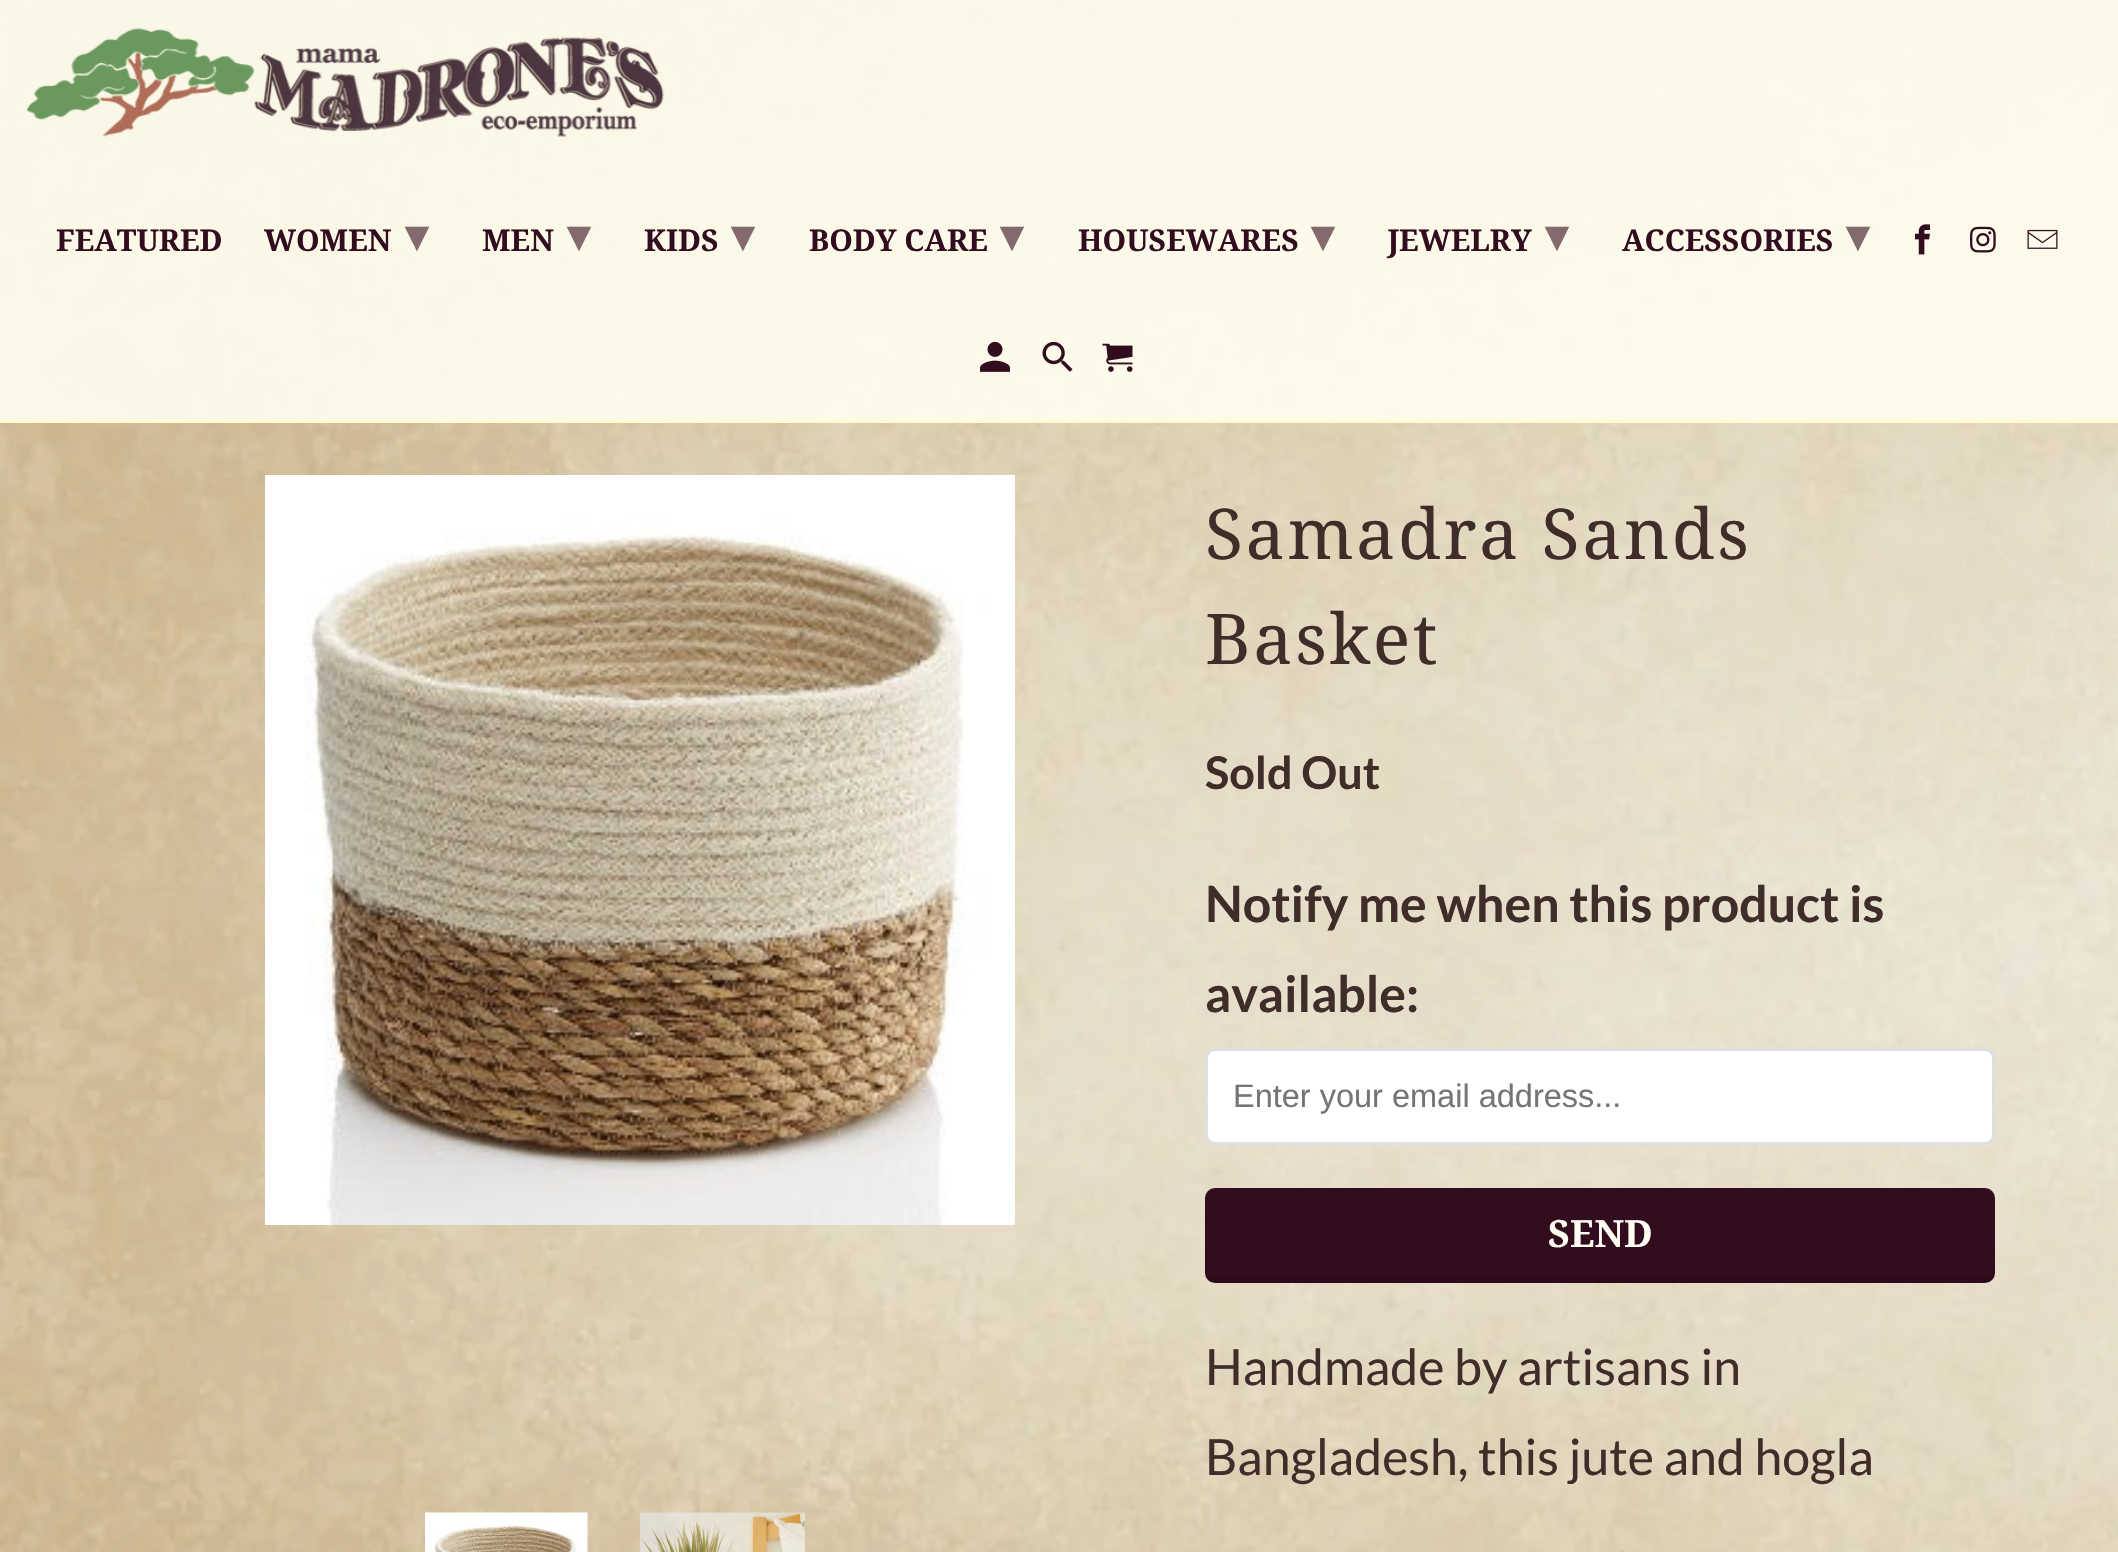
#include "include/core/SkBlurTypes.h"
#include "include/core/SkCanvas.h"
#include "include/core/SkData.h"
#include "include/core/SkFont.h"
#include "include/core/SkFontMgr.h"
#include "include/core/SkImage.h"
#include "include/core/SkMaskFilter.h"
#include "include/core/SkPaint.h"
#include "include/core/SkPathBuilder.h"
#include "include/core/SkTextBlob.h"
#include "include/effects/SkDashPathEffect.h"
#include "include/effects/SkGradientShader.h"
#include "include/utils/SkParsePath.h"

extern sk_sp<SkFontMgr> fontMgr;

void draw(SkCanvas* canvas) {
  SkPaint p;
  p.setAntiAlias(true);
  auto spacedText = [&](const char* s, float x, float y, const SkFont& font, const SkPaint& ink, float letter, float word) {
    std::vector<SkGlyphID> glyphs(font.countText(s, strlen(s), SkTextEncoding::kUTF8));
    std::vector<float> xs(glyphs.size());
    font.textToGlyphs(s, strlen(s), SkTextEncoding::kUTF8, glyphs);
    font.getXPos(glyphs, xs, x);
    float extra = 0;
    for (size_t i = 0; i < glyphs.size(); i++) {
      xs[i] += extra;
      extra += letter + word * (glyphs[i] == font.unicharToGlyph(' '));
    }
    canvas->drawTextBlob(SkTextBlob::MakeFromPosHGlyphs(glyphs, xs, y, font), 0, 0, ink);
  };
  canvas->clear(SK_ColorWHITE);
  canvas->drawImageRect(SkImages::DeferredFromEncodedData(SkData::MakeFromFileName("images/1.png")), SkRect::MakeLTRB(0, 0, 2118, 1552), SkSamplingOptions());
  p.setColor(SkColorSetARGB(230, 255, 254, 240));
  canvas->drawRect(SkRect::MakeLTRB(0, 0, 2118, 420), p);
  p.setColor(SkColorSetRGB(255, 252, 209));
  canvas->drawRect(SkRect::MakeLTRB(0, 420, 2118, 423), p);
  canvas->drawImageRect(SkImages::DeferredFromEncodedData(SkData::MakeFromFileName("images/2.png")), SkRect::MakeLTRB(26, 28, 665, 137), SkSamplingOptions());
  canvas->drawImageRect(SkImages::DeferredFromEncodedData(SkData::MakeFromFileName("images/3.png")), SkRect::MakeLTRB(1915, 224, 1930, 255), SkSamplingOptions());
  canvas->drawImageRect(SkImages::DeferredFromEncodedData(SkData::MakeFromFileName("images/4.png")), SkRect::MakeLTRB(1970, 226, 1996, 253), SkSamplingOptions());
  canvas->drawImageRect(SkImages::DeferredFromEncodedData(SkData::MakeFromFileName("images/5.png")), SkRect::MakeLTRB(2027, 229, 2058, 249), SkSamplingOptions());
  canvas->drawImageRect(SkImages::DeferredFromEncodedData(SkData::MakeFromFileName("images/6.png")), SkRect::MakeLTRB(980, 341, 1010, 372), SkSamplingOptions());
  canvas->drawImageRect(SkImages::DeferredFromEncodedData(SkData::MakeFromFileName("images/7.png")), SkRect::MakeLTRB(1042, 341, 1073, 372), SkSamplingOptions());
  canvas->drawImageRect(SkImages::DeferredFromEncodedData(SkData::MakeFromFileName("images/8.png")), SkRect::MakeLTRB(1102, 343, 1133, 372), SkSamplingOptions());
  canvas->drawImageRect(SkImages::DeferredFromEncodedData(SkData::MakeFromFileName("images/9.png")), SkRect::MakeLTRB(265, 475, 1015, 1225), SkSamplingOptions());
  canvas->drawImageRect(SkImages::DeferredFromEncodedData(SkData::MakeFromFileName("images/10.png")), SkRect::MakeLTRB(425, 1512, 588, 1552), SkSamplingOptions());
  canvas->drawImageRect(SkImages::DeferredFromEncodedData(SkData::MakeFromFileName("images/11.png")), SkRect::MakeLTRB(640, 1512, 805, 1552), SkSamplingOptions());
  p.setColor(SK_ColorWHITE);
  canvas->drawRoundRect(SkRect::MakeLTRB(1206.5f, 1049.5f, 1993.5f, 1143.5f), 8.5f, 8.5f, p);
  p.setStyle(SkPaint::kStroke_Style);
  p.setStrokeWidth(3);
  p.setColor(SkColorSetRGB(220, 224, 224));
  canvas->drawRoundRect(SkRect::MakeLTRB(1206.5f, 1049.5f, 1993.5f, 1143.5f), 8.5f, 8.5f, p);
  p.setStyle(SkPaint::kFill_Style);
  p.setColor(SkColorSetRGB(50, 12, 31));
  canvas->drawRoundRect(SkRect::MakeLTRB(1205, 1188, 1995, 1283), 10, 10, p);
  p.setColor(SkColorSetARGB(26, 0, 0, 0));
  canvas->drawPath(SkPathBuilder().moveTo(1205, 1265).cubicTo(1205, 1272, 1204, 1281, 1213, 1283).lineTo(1985, 1283).cubicTo(1996, 1283, 1995, 1272, 1995, 1265).cubicTo(1995, 1271, 1991, 1275, 1985, 1275).lineTo(1215, 1275).cubicTo(1209, 1275, 1205, 1271, 1205, 1265).close().detach(), p);
  SkFont font1(fontMgr->matchFamilyStyle("Droid Serif", SkFontStyle::Bold()), 30);
  font1.setSubpixel(true);
  p.setColor(SkColorSetRGB(50, 12, 31));
  canvas->drawString("FEATURED", 56, 251, font1, p);
  canvas->drawString("WOMEN", 264, 251, font1, p);
  SkFont font2(fontMgr->matchFamilyStyle("DejaVu Sans", SkFontStyle::Bold()), 45);
  font2.setSubpixel(true);
  p.setColor(SkColorSetRGB(130, 106, 111));
  canvas->drawString("▾", 405, 251, font2, p);
  p.setColor(SkColorSetRGB(50, 12, 31));
  canvas->drawString("MEN", 482, 251, font1, p);
  p.setColor(SkColorSetRGB(130, 106, 111));
  canvas->drawString("▾", 567, 251, font2, p);
  p.setColor(SkColorSetRGB(50, 12, 31));
  canvas->drawString("KIDS", 644, 251, font1, p);
  p.setColor(SkColorSetRGB(130, 106, 111));
  canvas->drawString("▾", 731, 251, font2, p);
  p.setColor(SkColorSetRGB(50, 12, 31));
  canvas->drawString("BODY CARE", 809, 251, font1, p);
  p.setColor(SkColorSetRGB(130, 106, 111));
  canvas->drawString("▾", 1000, 251, font2, p);
  p.setColor(SkColorSetRGB(50, 12, 31));
  canvas->drawString("HOUSEWARES", 1078, 251, font1, p);
  p.setColor(SkColorSetRGB(130, 106, 111));
  canvas->drawString("▾", 1311, 251, font2, p);
  p.setColor(SkColorSetRGB(50, 12, 31));
  canvas->drawString("JEWELRY", 1388, 251, font1, p);
  p.setColor(SkColorSetRGB(130, 106, 111));
  canvas->drawString("▾", 1545, 251, font2, p);
  p.setColor(SkColorSetRGB(50, 12, 31));
  canvas->drawString("ACCESSORIES", 1622, 251, font1, p);
  p.setColor(SkColorSetRGB(130, 106, 111));
  canvas->drawString("▾", 1846, 251, font2, p);
  SkFont font3(fontMgr->matchFamilyStyle("Droid Serif", SkFontStyle::Normal()), 70);
  font3.setSubpixel(true);
  p.setColor(SkColorSetRGB(62, 45, 41));
  spacedText("Samadra Sands", 1205, 559, font3, p, 2.5f, 0);
  spacedText("Basket", 1205, 664, font3, p, 2.5f, 0);
  SkFont font4(fontMgr->matchFamilyStyle("Lato", SkFontStyle::Bold()), 45);
  font4.setSubpixel(true);
  canvas->drawString("Sold Out", 1205, 789, font4, p);
  SkFont font5(fontMgr->matchFamilyStyle("Lato", SkFontStyle::Bold()), 50);
  font5.setSubpixel(true);
  canvas->drawString("Notify me when this product is", 1205, 922, font5, p);
  canvas->drawString("available:", 1205, 1012, font5, p);
  SkFont font6(fontMgr->matchFamilyStyle("Liberation Sans", SkFontStyle::Normal()), 32.5f);
  font6.setSubpixel(true);
  p.setColor(SkColorSetRGB(117, 117, 117));
  canvas->drawString("Enter your email address...", 1233, 1107, font6, p);
  SkFont font7(fontMgr->matchFamilyStyle("Droid Serif", SkFontStyle::Bold()), 37.5f);
  font7.setSubpixel(true);
  p.setColor(SkColorSetRGB(255, 254, 240));
  canvas->drawString("SEND", 1548, 1247, font7, p);
  SkFont font8(fontMgr->matchFamilyStyle("Lato", SkFontStyle::Normal()), 50);
  font8.setSubpixel(true);
  p.setColor(SkColorSetRGB(62, 45, 41));
  canvas->drawString("Handmade by artisans in", 1205, 1385, font8, p);
  canvas->drawString("Bangladesh, this jute and hogla", 1205, 1475, font8, p);
}
